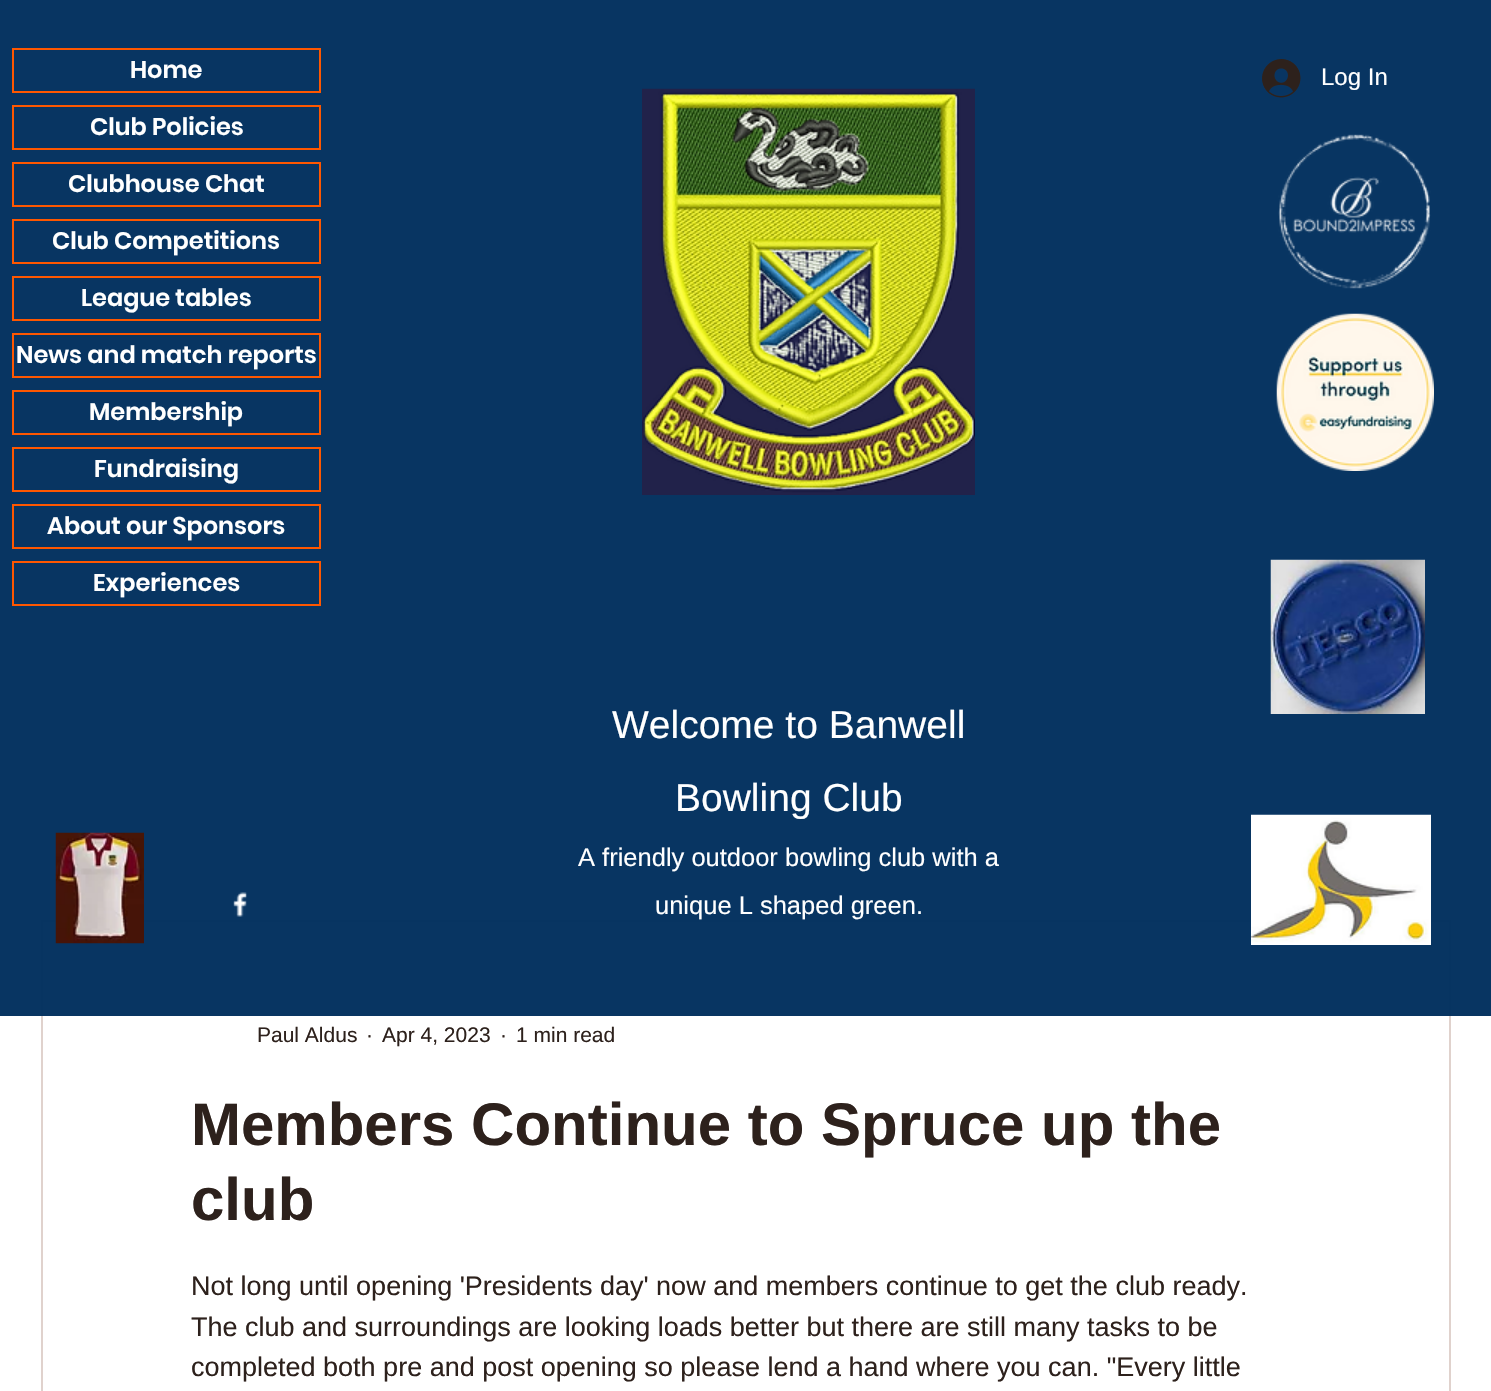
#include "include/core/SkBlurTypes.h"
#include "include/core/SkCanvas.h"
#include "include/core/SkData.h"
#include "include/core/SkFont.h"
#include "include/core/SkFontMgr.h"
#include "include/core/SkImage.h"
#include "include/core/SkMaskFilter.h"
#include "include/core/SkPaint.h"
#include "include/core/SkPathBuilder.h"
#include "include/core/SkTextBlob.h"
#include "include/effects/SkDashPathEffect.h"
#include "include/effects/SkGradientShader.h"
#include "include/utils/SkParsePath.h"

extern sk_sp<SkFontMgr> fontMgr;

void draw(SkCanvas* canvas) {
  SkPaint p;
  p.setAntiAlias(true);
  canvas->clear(SK_ColorWHITE);
  p.setStyle(SkPaint::kStroke_Style);
  p.setStrokeWidth(2);
  p.setColor(SkColorSetRGB(224, 210, 205));
  canvas->drawRect(SkRect::MakeLTRB(42, 921, 1450, 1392), p);
  p.setStyle(SkPaint::kFill_Style);
  p.setColor(SkColorSetARGB(247, 0, 46, 93));
  canvas->drawRect(SkRect::MakeLTRB(0, 0, 1491, 1016), p);
  p.setStyle(SkPaint::kStroke_Style);
  p.setColor(SkColorSetRGB(255, 87, 0));
  canvas->drawRect(SkRect::MakeLTRB(13, 49, 320, 92), p);
  canvas->drawRect(SkRect::MakeLTRB(13, 106, 320, 149), p);
  canvas->drawRect(SkRect::MakeLTRB(13, 163, 320, 206), p);
  canvas->drawRect(SkRect::MakeLTRB(13, 220, 320, 263), p);
  canvas->drawRect(SkRect::MakeLTRB(13, 277, 320, 320), p);
  canvas->drawRect(SkRect::MakeLTRB(13, 334, 320, 377), p);
  canvas->drawRect(SkRect::MakeLTRB(13, 391, 320, 434), p);
  canvas->drawRect(SkRect::MakeLTRB(13, 448, 320, 491), p);
  canvas->drawRect(SkRect::MakeLTRB(13, 505, 320, 548), p);
  canvas->drawRect(SkRect::MakeLTRB(13, 562, 320, 605), p);
  canvas->drawImageRect(SkImages::DeferredFromEncodedData(SkData::MakeFromFileName("images/1.png")), SkRect::MakeLTRB(1262, 59, 1301, 98), SkSamplingOptions());
  canvas->drawImageRect(SkImages::DeferredFromEncodedData(SkData::MakeFromFileName("images/2.png")), SkRect::MakeLTRB(642, 88, 975, 495), SkSamplingOptions());
  canvas->drawImageRect(SkImages::DeferredFromEncodedData(SkData::MakeFromFileName("images/3.png")), SkRect::MakeLTRB(1278, 134, 1431, 289), SkSamplingOptions());
  canvas->drawImageRect(SkImages::DeferredFromEncodedData(SkData::MakeFromFileName("images/4.png")), SkRect::MakeLTRB(1276, 313, 1434, 471), SkSamplingOptions());
  canvas->drawImageRect(SkImages::DeferredFromEncodedData(SkData::MakeFromFileName("images/5.png")), SkRect::MakeLTRB(1270, 559, 1425, 714), SkSamplingOptions());
  canvas->drawImageRect(SkImages::DeferredFromEncodedData(SkData::MakeFromFileName("images/6.png")), SkRect::MakeLTRB(55, 832, 144, 944), SkSamplingOptions());
  canvas->drawImageRect(SkImages::DeferredFromEncodedData(SkData::MakeFromFileName("images/7.png")), SkRect::MakeLTRB(233, 892, 247, 917), SkSamplingOptions());
  canvas->drawImageRect(SkImages::DeferredFromEncodedData(SkData::MakeFromFileName("images/8.png")), SkRect::MakeLTRB(1251, 814, 1431, 945), SkSamplingOptions());
  SkFont font1(fontMgr->matchFamilyStyle("Poppins", SkFontStyle(600, SkFontStyle::kNormal_Width, SkFontStyle::kUpright_Slant)), 24);
  font1.setSubpixel(true);
  p.setStyle(SkPaint::kFill_Style);
  p.setColor(SK_ColorWHITE);
  canvas->drawString("Home", 130, 78, font1, p);
  canvas->drawString("Club Policies", 90, 135, font1, p);
  canvas->drawString("Clubhouse Chat", 68, 192, font1, p);
  canvas->drawString("Club Competitions", 52, 249, font1, p);
  canvas->drawString("League tables", 81, 306, font1, p);
  canvas->drawString("News and match reports", 16, 363, font1, p);
  canvas->drawString("Membership", 89, 420, font1, p);
  canvas->drawString("Fundraising", 94, 477, font1, p);
  canvas->drawString("About our Sponsors", 47, 534, font1, p);
  canvas->drawString("Experiences", 93, 591, font1, p);
  SkFont font2(fontMgr->matchFamilyStyle("Liberation Sans", SkFontStyle::Normal()), 24);
  font2.setSubpixel(true);
  canvas->drawString("Log In", 1321, 85, font2, p);
  SkFont font3(fontMgr->matchFamilyStyle("Liberation Sans", SkFontStyle::Normal()), 39);
  font3.setSubpixel(true);
  canvas->drawString("Welcome to Banwell", 612, 738, font3, p);
  canvas->drawString("Bowling Club", 675, 811, font3, p);
  SkFont font4(fontMgr->matchFamilyStyle("Liberation Sans", SkFontStyle::Normal()), 25.5f);
  font4.setSubpixel(true);
  canvas->drawString("A friendly outdoor bowling club with a", 578, 866, font4, p);
  canvas->drawString("unique L shaped green.", 655, 914, font4, p);
  SkFont font5(fontMgr->matchFamilyStyle("Liberation Sans", SkFontStyle::Normal()), 21);
  font5.setSubpixel(true);
  p.setColor(SkColorSetRGB(45, 33, 28));
  canvas->drawString("Paul Aldus", 257, 1042, font5, p);
  canvas->drawString("·", 366, 1042, font5, p);
  canvas->drawString("Apr 4, 2023", 382, 1042, font5, p);
  canvas->drawString("·", 500, 1042, font5, p);
  canvas->drawString("1 min read", 516, 1042, font5, p);
  SkFont font6(fontMgr->matchFamilyStyle("Liberation Sans", SkFontStyle::Bold()), 60);
  font6.setSubpixel(true);
  canvas->drawString("Members Continue to Spruce up the", 191, 1145, font6, p);
  canvas->drawString("club", 191, 1220, font6, p);
  SkFont font7(fontMgr->matchFamilyStyle("Liberation Sans", SkFontStyle::Normal()), 27);
  font7.setSubpixel(true);
  canvas->drawString("Not long until opening 'Presidents day' now and members continue to get the club ready.", 191, 1295, font7, p);
  canvas->drawString("The club and surroundings are looking loads better but there are still many tasks to be", 191, 1336, font7, p);
  canvas->drawString("completed both pre and post opening so please lend a hand where you can. \"Every little", 191, 1376, font7, p);
}
